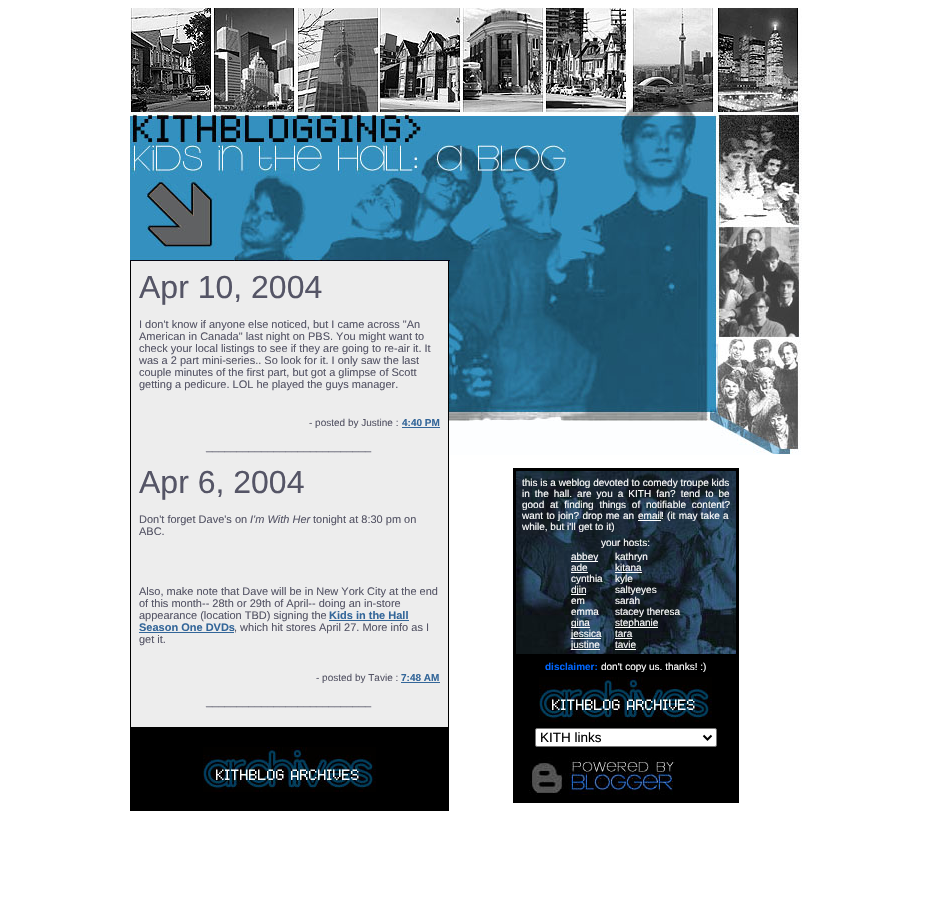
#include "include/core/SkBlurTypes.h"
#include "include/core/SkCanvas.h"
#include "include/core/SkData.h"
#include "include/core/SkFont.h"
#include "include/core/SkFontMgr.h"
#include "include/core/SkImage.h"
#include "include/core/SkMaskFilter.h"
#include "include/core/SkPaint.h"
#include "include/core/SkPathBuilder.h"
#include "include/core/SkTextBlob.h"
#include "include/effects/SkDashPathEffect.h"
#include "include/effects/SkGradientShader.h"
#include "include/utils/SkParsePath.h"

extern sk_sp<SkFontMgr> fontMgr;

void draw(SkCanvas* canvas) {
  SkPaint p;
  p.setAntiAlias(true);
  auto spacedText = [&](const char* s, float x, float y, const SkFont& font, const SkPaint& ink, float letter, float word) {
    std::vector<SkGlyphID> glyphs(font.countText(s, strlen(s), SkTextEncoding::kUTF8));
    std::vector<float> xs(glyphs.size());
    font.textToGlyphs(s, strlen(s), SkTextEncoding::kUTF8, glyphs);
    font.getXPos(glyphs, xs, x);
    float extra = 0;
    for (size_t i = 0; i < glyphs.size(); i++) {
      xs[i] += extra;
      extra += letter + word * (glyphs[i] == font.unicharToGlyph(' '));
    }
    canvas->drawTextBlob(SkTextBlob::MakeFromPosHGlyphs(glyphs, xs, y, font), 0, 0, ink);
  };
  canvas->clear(SK_ColorWHITE);
  canvas->drawImageRect(SkImages::DeferredFromEncodedData(SkData::MakeFromFileName("images/1.png")), SkRect::MakeLTRB(130, 8, 802, 261), SkSamplingOptions());
  p.setColor(SK_ColorBLACK);
  canvas->drawRect(SkRect::MakeLTRB(130, 261, 449, 811), p);
  p.setColor(SkColorSetRGB(237, 237, 237));
  canvas->drawRect(SkRect::MakeLTRB(131, 261, 448, 727), p);
  p.setColor(SkColorSetRGB(51, 102, 153));
  canvas->drawRect(SkRect::MakeLTRB(402, 427, 440, 428), p);
  canvas->drawRect(SkRect::MakeLTRB(329, 620, 409, 621), p);
  canvas->drawRect(SkRect::MakeLTRB(139, 632, 234, 633), p);
  canvas->drawRect(SkRect::MakeLTRB(401, 682, 440, 683), p);
  canvas->drawImageRect(SkImages::DeferredFromEncodedData(SkData::MakeFromFileName("images/2.png")), SkRect::MakeLTRB(203, 747, 376, 792), SkSamplingOptions());
  canvas->drawImageRect(SkImages::DeferredFromEncodedData(SkData::MakeFromFileName("images/3.png")), SkRect::MakeLTRB(449, 261, 801, 455), SkSamplingOptions());
  p.setColor(SK_ColorBLACK);
  canvas->drawRect(SkRect::MakeLTRB(513, 468, 739, 803), p);
  canvas->drawImageRect(SkImages::DeferredFromEncodedData(SkData::MakeFromFileName("images/4.png")), SkRect::MakeLTRB(516, 471, 736, 654), SkSamplingOptions());
  p.setColor(SK_ColorWHITE);
  canvas->drawRect(SkRect::MakeLTRB(638, 520, 661, 521), p);
  canvas->drawRect(SkRect::MakeLTRB(571, 561, 598, 562), p);
  canvas->drawRect(SkRect::MakeLTRB(571, 572, 588, 573), p);
  canvas->drawRect(SkRect::MakeLTRB(571, 594, 586, 595), p);
  canvas->drawRect(SkRect::MakeLTRB(571, 627, 590, 628), p);
  canvas->drawRect(SkRect::MakeLTRB(571, 638, 601, 639), p);
  canvas->drawRect(SkRect::MakeLTRB(571, 649, 600, 650), p);
  canvas->drawRect(SkRect::MakeLTRB(615, 572, 642, 573), p);
  canvas->drawRect(SkRect::MakeLTRB(615, 627, 658, 628), p);
  canvas->drawRect(SkRect::MakeLTRB(615, 638, 632, 639), p);
  canvas->drawRect(SkRect::MakeLTRB(615, 649, 636, 650), p);
  canvas->drawImageRect(SkImages::DeferredFromEncodedData(SkData::MakeFromFileName("images/2.png")), SkRect::MakeLTRB(539, 677, 712, 722), SkSamplingOptions());
  canvas->drawRoundRect(SkRect::MakeLTRB(535.5f, 728.5f, 716.5f, 746.5f), 1.5f, 1.5f, p);
  p.setStyle(SkPaint::kStroke_Style);
  p.setStrokeWidth(1);
  p.setColor(SkColorSetRGB(118, 118, 118));
  canvas->drawRoundRect(SkRect::MakeLTRB(535.5f, 728.5f, 716.5f, 746.5f), 1.5f, 1.5f, p);
  p.setStrokeWidth(2);
  p.setColor(SK_ColorBLACK);
  canvas->drawPath(SkPathBuilder().moveTo(703.5f, 735.5f).lineTo(707.5f, 739.5f).lineTo(711.5f, 735.5f).detach(), p);
  canvas->drawImageRect(SkImages::DeferredFromEncodedData(SkData::MakeFromFileName("images/5.png")), SkRect::MakeLTRB(529, 757, 675, 795), SkSamplingOptions());
  SkFont font1(fontMgr->matchFamilyStyle("Liberation Sans", SkFontStyle::Normal()), 32);
  font1.setSubpixel(true);
  p.setStyle(SkPaint::kFill_Style);
  p.setColor(SkColorSetRGB(85, 85, 102));
  canvas->drawString("Apr 10, 2004", 139, 298, font1, p);
  SkFont font2(fontMgr->matchFamilyStyle("Liberation Sans", SkFontStyle::Normal()), 11);
  font2.setSubpixel(true);
  canvas->drawString("I don't know if anyone else noticed, but I came across \"An", 139, 328, font2, p);
  canvas->drawString("American in Canada\" last night on PBS. You might want to", 139, 340, font2, p);
  canvas->drawString("check your local listings to see if they are going to re-air it. It", 139, 352, font2, p);
  canvas->drawString("was a 2 part mini-series.. So look for it. I only saw the last", 139, 364, font2, p);
  canvas->drawString("couple minutes of the first part, but got a glimpse of Scott", 139, 376, font2, p);
  canvas->drawString("getting a pedicure. LOL he played the guys manager.", 139, 388, font2, p);
  SkFont font3(fontMgr->matchFamilyStyle("Liberation Sans", SkFontStyle::Normal()), 10);
  font3.setSubpixel(true);
  canvas->drawString("- posted by Justine :", 309, 426, font3, p);
  SkFont font4(fontMgr->matchFamilyStyle("Liberation Sans", SkFontStyle::Bold()), 10);
  font4.setSubpixel(true);
  p.setColor(SkColorSetRGB(51, 102, 153));
  canvas->drawString("4:40 PM", 402, 426, font4, p);
  p.setColor(SkColorSetRGB(85, 85, 102));
  canvas->drawString("___________________________", 206, 450, font2, p);
  canvas->drawString("Apr 6, 2004", 139, 493, font1, p);
  canvas->drawString("Don't forget Dave's on", 139, 523, font2, p);
  SkFont font5(fontMgr->matchFamilyStyle("Liberation Sans", SkFontStyle::Italic()), 11);
  font5.setSubpixel(true);
  canvas->drawString("I'm With Her", 250, 523, font5, p);
  canvas->drawString("tonight at 8:30 pm on", 313, 523, font2, p);
  canvas->drawString("ABC.", 139, 535, font2, p);
  canvas->drawString("Also, make note that Dave will be in New York City at the end", 139, 595, font2, p);
  canvas->drawString("of this month-- 28th or 29th of April-- doing an in-store", 139, 607, font2, p);
  canvas->drawString("appearance (location TBD) signing the", 139, 619, font2, p);
  SkFont font6(fontMgr->matchFamilyStyle("Liberation Sans", SkFontStyle::Bold()), 11);
  font6.setSubpixel(true);
  p.setColor(SkColorSetRGB(51, 102, 153));
  canvas->drawString("Kids in the Hall", 329, 619, font6, p);
  canvas->drawString("Season One DVDs", 139, 631, font6, p);
  p.setColor(SkColorSetRGB(85, 85, 102));
  canvas->drawString(", which hit stores April 27. More info as I", 234, 631, font2, p);
  canvas->drawString("get it.", 139, 643, font2, p);
  canvas->drawString("- posted by Tavie :", 316, 681, font3, p);
  p.setColor(SkColorSetRGB(51, 102, 153));
  canvas->drawString("7:48 AM", 401, 681, font4, p);
  p.setColor(SkColorSetRGB(85, 85, 102));
  canvas->drawString("___________________________", 206, 705, font2, p);
  p.setColor(SK_ColorWHITE);
  canvas->drawString("this is a weblog devoted to comedy troupe kids", 522, 486, font3, p);
  spacedText("in the hall. are you a KITH fan? tend to be", 522, 497, font3, p, 0, 2.25f);
  spacedText("good at finding things of notifiable content?", 522, 508, font3, p, 0, 3);
  spacedText("want to join? drop me an", 522, 519, font3, p, 0, 0.5f);
  canvas->drawString("email", 638, 519, font3, p);
  spacedText("! (it may take a", 661, 519, font3, p, 0, 0.5f);
  canvas->drawString("while, but i'll get to it)", 522, 530, font3, p);
  canvas->drawString("your hosts:", 601, 546, font3, p);
  canvas->drawString("abbey", 571, 560, font3, p);
  canvas->drawString("ade", 571, 571, font3, p);
  canvas->drawString("cynthia", 571, 582, font3, p);
  canvas->drawString("djin", 571, 593, font3, p);
  canvas->drawString("em", 571, 604, font3, p);
  canvas->drawString("emma", 571, 615, font3, p);
  canvas->drawString("gina", 571, 626, font3, p);
  canvas->drawString("jessica", 571, 637, font3, p);
  canvas->drawString("justine", 571, 648, font3, p);
  canvas->drawString("kathryn", 615, 560, font3, p);
  canvas->drawString("kitana", 615, 571, font3, p);
  canvas->drawString("kyle", 615, 582, font3, p);
  canvas->drawString("saltyeyes", 615, 593, font3, p);
  canvas->drawString("sarah", 615, 604, font3, p);
  canvas->drawString("stacey theresa", 615, 615, font3, p);
  canvas->drawString("stephanie", 615, 626, font3, p);
  canvas->drawString("tara", 615, 637, font3, p);
  canvas->drawString("tavie", 615, 648, font3, p);
  p.setColor(SkColorSetRGB(0, 102, 255));
  canvas->drawString("disclaimer:", 545, 670, font4, p);
  p.setColor(SK_ColorWHITE);
  canvas->drawString("don't copy us. thanks! :)", 601, 670, font3, p);
  SkFont font7(fontMgr->matchFamilyStyle("Liberation Sans", SkFontStyle::Normal()), 13.5f);
  font7.setSubpixel(true);
  p.setColor(SK_ColorBLACK);
  canvas->drawString("KITH links", 540, 742, font7, p);
}
